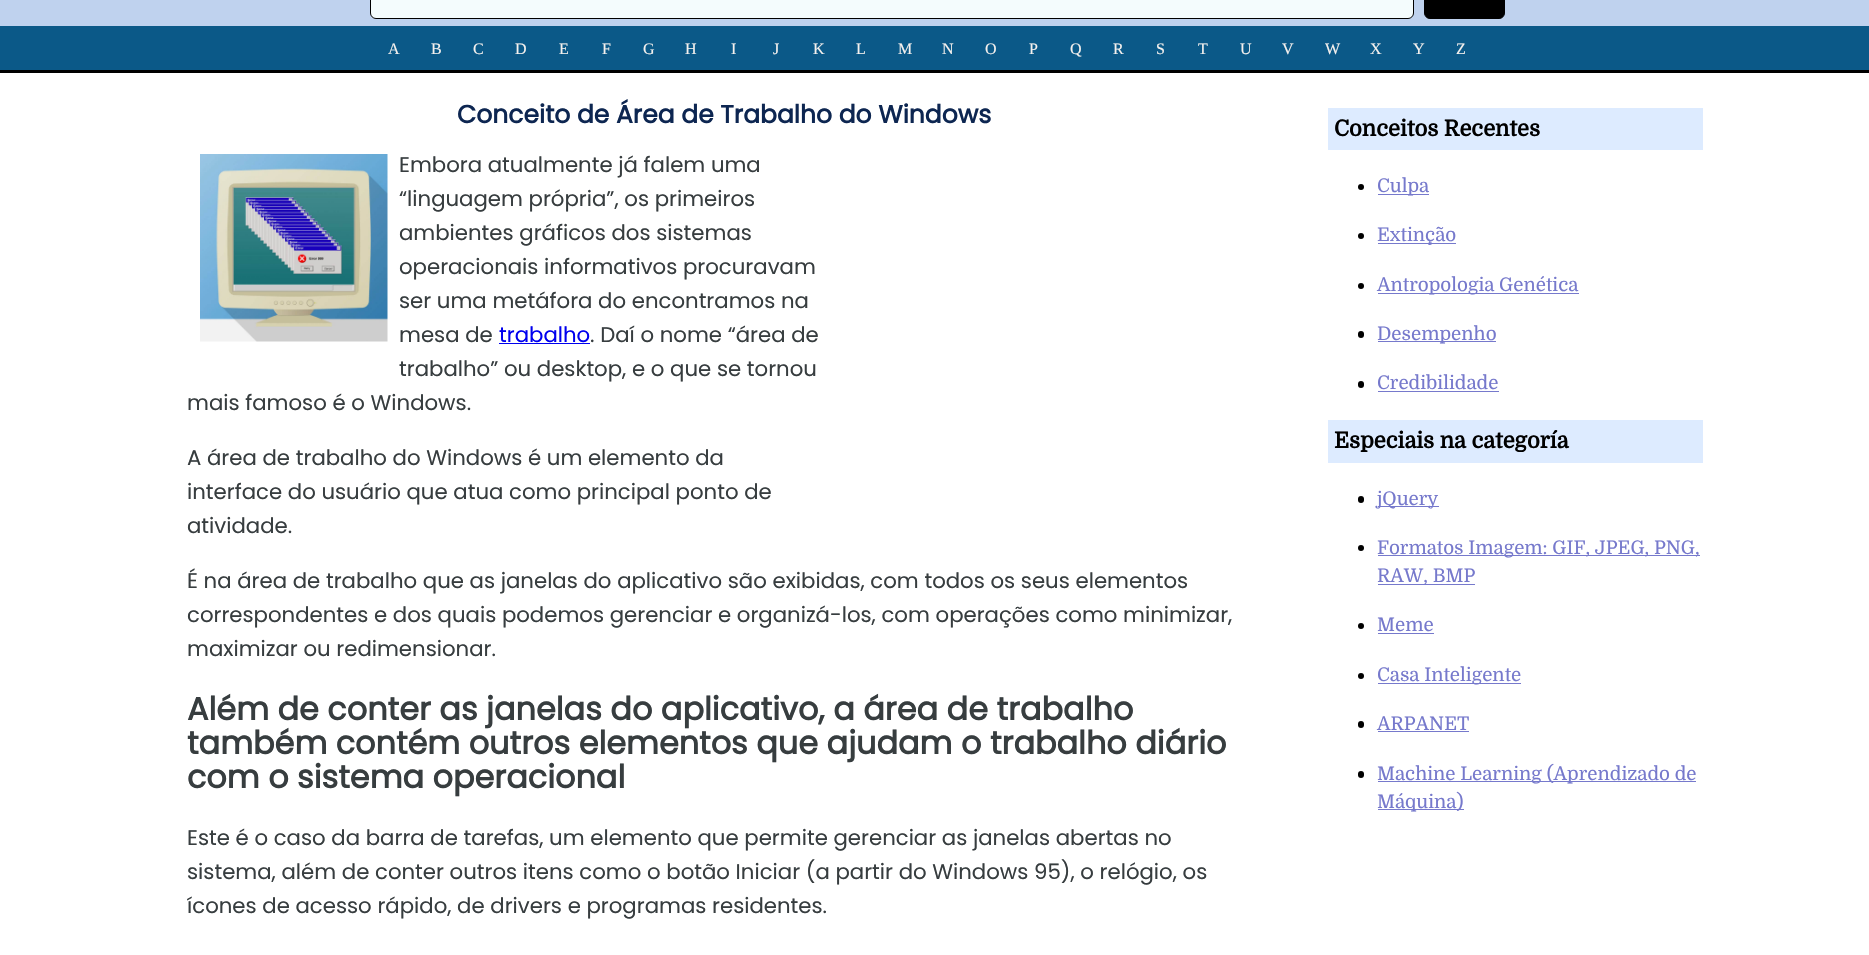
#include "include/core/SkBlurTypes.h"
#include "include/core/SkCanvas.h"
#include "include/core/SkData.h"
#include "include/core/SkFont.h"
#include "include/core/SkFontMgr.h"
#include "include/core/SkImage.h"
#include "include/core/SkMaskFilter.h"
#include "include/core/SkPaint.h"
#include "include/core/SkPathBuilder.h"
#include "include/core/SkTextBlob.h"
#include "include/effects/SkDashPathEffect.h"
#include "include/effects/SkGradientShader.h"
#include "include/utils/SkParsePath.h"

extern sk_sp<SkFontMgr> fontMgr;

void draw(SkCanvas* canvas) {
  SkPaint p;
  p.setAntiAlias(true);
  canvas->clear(SK_ColorWHITE);
  p.setColor(SkColorSetRGB(191, 210, 238));
  canvas->drawRect(SkRect::MakeLTRB(0, 0, 1869, 26), p);
  p.setColor(SkColorSetRGB(244, 252, 253));
  canvas->drawRoundRect(SkRect::MakeLTRB(370.5f, -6.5f, 1413.5f, 18.5f), 5.5f, 5.5f, p);
  p.setStyle(SkPaint::kStroke_Style);
  p.setStrokeWidth(1);
  p.setColor(SK_ColorBLACK);
  canvas->drawRoundRect(SkRect::MakeLTRB(370.5f, -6.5f, 1413.5f, 18.5f), 5.5f, 5.5f, p);
  p.setStyle(SkPaint::kFill_Style);
  canvas->drawRoundRect(SkRect::MakeLTRB(1424.5f, -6.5f, 1504.5f, 18.5f), 5.5f, 5.5f, p);
  p.setStyle(SkPaint::kStroke_Style);
  canvas->drawRoundRect(SkRect::MakeLTRB(1424.5f, -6.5f, 1504.5f, 18.5f), 5.5f, 5.5f, p);
  p.setStyle(SkPaint::kFill_Style);
  p.setColor(SkColorSetRGB(11, 89, 136));
  canvas->drawRect(SkRect::MakeLTRB(0, 26, 1869, 70), p);
  p.setColor(SK_ColorBLACK);
  canvas->drawRect(SkRect::MakeLTRB(0, 70, 1869, 73), p);
  canvas->drawImageRect(SkImages::DeferredFromEncodedData(SkData::MakeFromFileName("images/1.png")), SkRect::MakeLTRB(200, 154, 388, 342), SkSamplingOptions());
  p.setColor(SkColorSetRGB(0, 0, 238));
  canvas->drawRect(SkRect::MakeLTRB(499, 343, 590, 344), p);
  p.setColor(SkColorSetRGB(221, 235, 255));
  canvas->drawRect(SkRect::MakeLTRB(1328, 108, 1703, 150), p);
  p.setColor(SK_ColorBLACK);
  canvas->drawCircle(1361, 187, 3, p);
  p.setColor(SkColorSetRGB(118, 121, 204));
  canvas->drawRect(SkRect::MakeLTRB(1378, 194, 1429, 195), p);
  p.setColor(SK_ColorBLACK);
  canvas->drawCircle(1361, 236, 3, p);
  p.setColor(SkColorSetRGB(118, 121, 204));
  canvas->drawRect(SkRect::MakeLTRB(1378, 243, 1456, 244), p);
  p.setColor(SK_ColorBLACK);
  canvas->drawCircle(1361, 286, 3, p);
  p.setColor(SkColorSetRGB(118, 121, 204));
  canvas->drawRect(SkRect::MakeLTRB(1378, 293, 1579, 294), p);
  p.setColor(SK_ColorBLACK);
  canvas->drawRoundRect(SkRect::MakeLTRB(1358, 331, 1364, 338), 3, 3, p);
  p.setColor(SkColorSetRGB(118, 121, 204));
  canvas->drawRect(SkRect::MakeLTRB(1378, 341, 1496, 342), p);
  p.setColor(SK_ColorBLACK);
  canvas->drawRoundRect(SkRect::MakeLTRB(1358, 381, 1364, 388), 3, 3, p);
  p.setColor(SkColorSetRGB(118, 121, 204));
  canvas->drawRect(SkRect::MakeLTRB(1378, 391, 1499, 392), p);
  p.setColor(SkColorSetRGB(221, 235, 255));
  canvas->drawRect(SkRect::MakeLTRB(1328, 420, 1703, 463), p);
  p.setColor(SK_ColorBLACK);
  canvas->drawRoundRect(SkRect::MakeLTRB(1358, 496, 1364, 503), 3, 3, p);
  p.setColor(SkColorSetRGB(118, 121, 204));
  canvas->drawRect(SkRect::MakeLTRB(1378, 506, 1439, 507), p);
  p.setColor(SK_ColorBLACK);
  canvas->drawCircle(1361, 548, 3, p);
  p.setColor(SkColorSetRGB(118, 121, 204));
  canvas->drawRect(SkRect::MakeLTRB(1378, 555, 1700, 556), p);
  canvas->drawRect(SkRect::MakeLTRB(1378, 584, 1475, 585), p);
  p.setColor(SK_ColorBLACK);
  canvas->drawCircle(1361, 626, 3, p);
  p.setColor(SkColorSetRGB(118, 121, 204));
  canvas->drawRect(SkRect::MakeLTRB(1378, 633, 1434, 634), p);
  p.setColor(SK_ColorBLACK);
  canvas->drawCircle(1361, 676, 3, p);
  p.setColor(SkColorSetRGB(118, 121, 204));
  canvas->drawRect(SkRect::MakeLTRB(1378, 683, 1521, 684), p);
  p.setColor(SK_ColorBLACK);
  canvas->drawRoundRect(SkRect::MakeLTRB(1358, 721, 1364, 728), 3, 3, p);
  p.setColor(SkColorSetRGB(118, 121, 204));
  canvas->drawRect(SkRect::MakeLTRB(1378, 731, 1469, 732), p);
  p.setColor(SK_ColorBLACK);
  canvas->drawRoundRect(SkRect::MakeLTRB(1358, 771, 1364, 778), 3, 3, p);
  p.setColor(SkColorSetRGB(118, 121, 204));
  canvas->drawRect(SkRect::MakeLTRB(1378, 781, 1696, 782), p);
  canvas->drawRect(SkRect::MakeLTRB(1378, 809, 1464, 810), p);
  SkFont font1(fontMgr->matchFamilyStyle("Liberation Serif", SkFontStyle::Normal()), 16);
  font1.setSubpixel(true);
  p.setColor(SkColorSetRGB(245, 241, 238));
  canvas->drawString("A", 388, 54, font1, p);
  canvas->drawString("B", 431, 54, font1, p);
  canvas->drawString("C", 473, 54, font1, p);
  canvas->drawString("D", 515, 54, font1, p);
  canvas->drawString("E", 559, 54, font1, p);
  canvas->drawString("F", 602, 54, font1, p);
  canvas->drawString("G", 643, 54, font1, p);
  canvas->drawString("H", 685, 54, font1, p);
  canvas->drawString("I", 731, 54, font1, p);
  canvas->drawString("J", 773, 54, font1, p);
  canvas->drawString("K", 813, 54, font1, p);
  canvas->drawString("L", 856, 54, font1, p);
  canvas->drawString("M", 898, 54, font1, p);
  canvas->drawString("N", 942, 54, font1, p);
  canvas->drawString("O", 985, 54, font1, p);
  canvas->drawString("P", 1029, 54, font1, p);
  canvas->drawString("Q", 1070, 54, font1, p);
  canvas->drawString("R", 1113, 54, font1, p);
  canvas->drawString("S", 1156, 54, font1, p);
  canvas->drawString("T", 1198, 54, font1, p);
  canvas->drawString("U", 1240, 54, font1, p);
  canvas->drawString("V", 1282, 54, font1, p);
  canvas->drawString("W", 1325, 54, font1, p);
  canvas->drawString("X", 1370, 54, font1, p);
  canvas->drawString("Y", 1413, 54, font1, p);
  canvas->drawString("Z", 1456, 54, font1, p);
  SkFont font2(fontMgr->matchFamilyStyle("Poppins", SkFontStyle::Bold()), 25);
  font2.setSubpixel(true);
  p.setColor(SkColorSetRGB(13, 38, 81));
  canvas->drawString("Conceito de Área de Trabalho do Windows", 457, 123, font2, p);
  SkFont font3(fontMgr->matchFamilyStyle("Poppins", SkFontStyle::Normal()), 21.25f);
  font3.setSubpixel(true);
  p.setColor(SkColorSetRGB(55, 61, 63));
  canvas->drawString("Embora atualmente já falem uma", 399, 172, font3, p);
  canvas->drawString("“linguagem própria”, os primeiros", 399, 206, font3, p);
  canvas->drawString("ambientes gráficos dos sistemas", 399, 240, font3, p);
  canvas->drawString("operacionais informativos procuravam", 399, 274, font3, p);
  canvas->drawString("ser uma metáfora do encontramos na", 399, 308, font3, p);
  canvas->drawString("mesa de", 399, 342, font3, p);
  p.setColor(SkColorSetRGB(0, 0, 238));
  canvas->drawString("trabalho", 499, 342, font3, p);
  p.setColor(SkColorSetRGB(55, 61, 63));
  canvas->drawString(". Daí o nome “área de", 590, 342, font3, p);
  canvas->drawString("trabalho” ou desktop, e o que se tornou", 399, 376, font3, p);
  canvas->drawString("mais famoso é o Windows.", 187, 410, font3, p);
  canvas->drawString("A área de trabalho do Windows é um elemento da", 187, 465, font3, p);
  canvas->drawString("interface do usuário que atua como principal ponto de", 187, 499, font3, p);
  canvas->drawString("atividade.", 187, 533, font3, p);
  canvas->drawString("É na área de trabalho que as janelas do aplicativo são exibidas, com todos os seus elementos", 187, 588, font3, p);
  canvas->drawString("correspondentes e dos quais podemos gerenciar e organizá-los, com operações como minimizar,", 187, 622, font3, p);
  canvas->drawString("maximizar ou redimensionar.", 187, 656, font3, p);
  SkFont font4(fontMgr->matchFamilyStyle("Poppins", SkFontStyle::Bold()), 31.9f);
  font4.setSubpixel(true);
  canvas->drawString("Além de conter as janelas do aplicativo, a área de trabalho", 187, 720, font4, p);
  canvas->drawString("também contém outros elementos que ajudam o trabalho diário", 187, 754, font4, p);
  canvas->drawString("com o sistema operacional", 187, 788, font4, p);
  canvas->drawString("Este é o caso da barra de tarefas, um elemento que permite gerenciar as janelas abertas no", 187, 845, font3, p);
  canvas->drawString("sistema, além de conter outros itens como o botão Iniciar (a partir do Windows 95), o relógio, os", 187, 879, font3, p);
  canvas->drawString("ícones de acesso rápido, de drivers e programas residentes.", 187, 913, font3, p);
  SkFont font5(fontMgr->matchFamilyStyle("Domine", SkFontStyle::Bold()), 22);
  font5.setSubpixel(true);
  p.setColor(SK_ColorBLACK);
  canvas->drawString("Conceitos Recentes", 1334, 136, font5, p);
  SkFont font6(fontMgr->matchFamilyStyle("Domine", SkFontStyle::Normal()), 18.75f);
  font6.setSubpixel(true);
  p.setColor(SkColorSetRGB(118, 121, 204));
  canvas->drawString("Culpa", 1377, 192, font6, p);
  canvas->drawString("Extinção", 1377, 241, font6, p);
  canvas->drawString("Antropologia Genética", 1377, 291, font6, p);
  canvas->drawString("Desempenho", 1377, 340, font6, p);
  canvas->drawString("Credibilidade", 1377, 389, font6, p);
  p.setColor(SK_ColorBLACK);
  canvas->drawString("Especiais na categoría", 1334, 448, font5, p);
  p.setColor(SkColorSetRGB(118, 121, 204));
  canvas->drawString("jQuery", 1377, 505, font6, p);
  canvas->drawString("Formatos Imagem: GIF, JPEG, PNG,", 1377, 554, font6, p);
  canvas->drawString("RAW, BMP", 1377, 582, font6, p);
  canvas->drawString("Meme", 1377, 631, font6, p);
  canvas->drawString("Casa Inteligente", 1377, 681, font6, p);
  canvas->drawString("ARPANET", 1377, 730, font6, p);
  canvas->drawString("Machine Learning (Aprendizado de", 1377, 780, font6, p);
  canvas->drawString("Máquina)", 1377, 808, font6, p);
}
